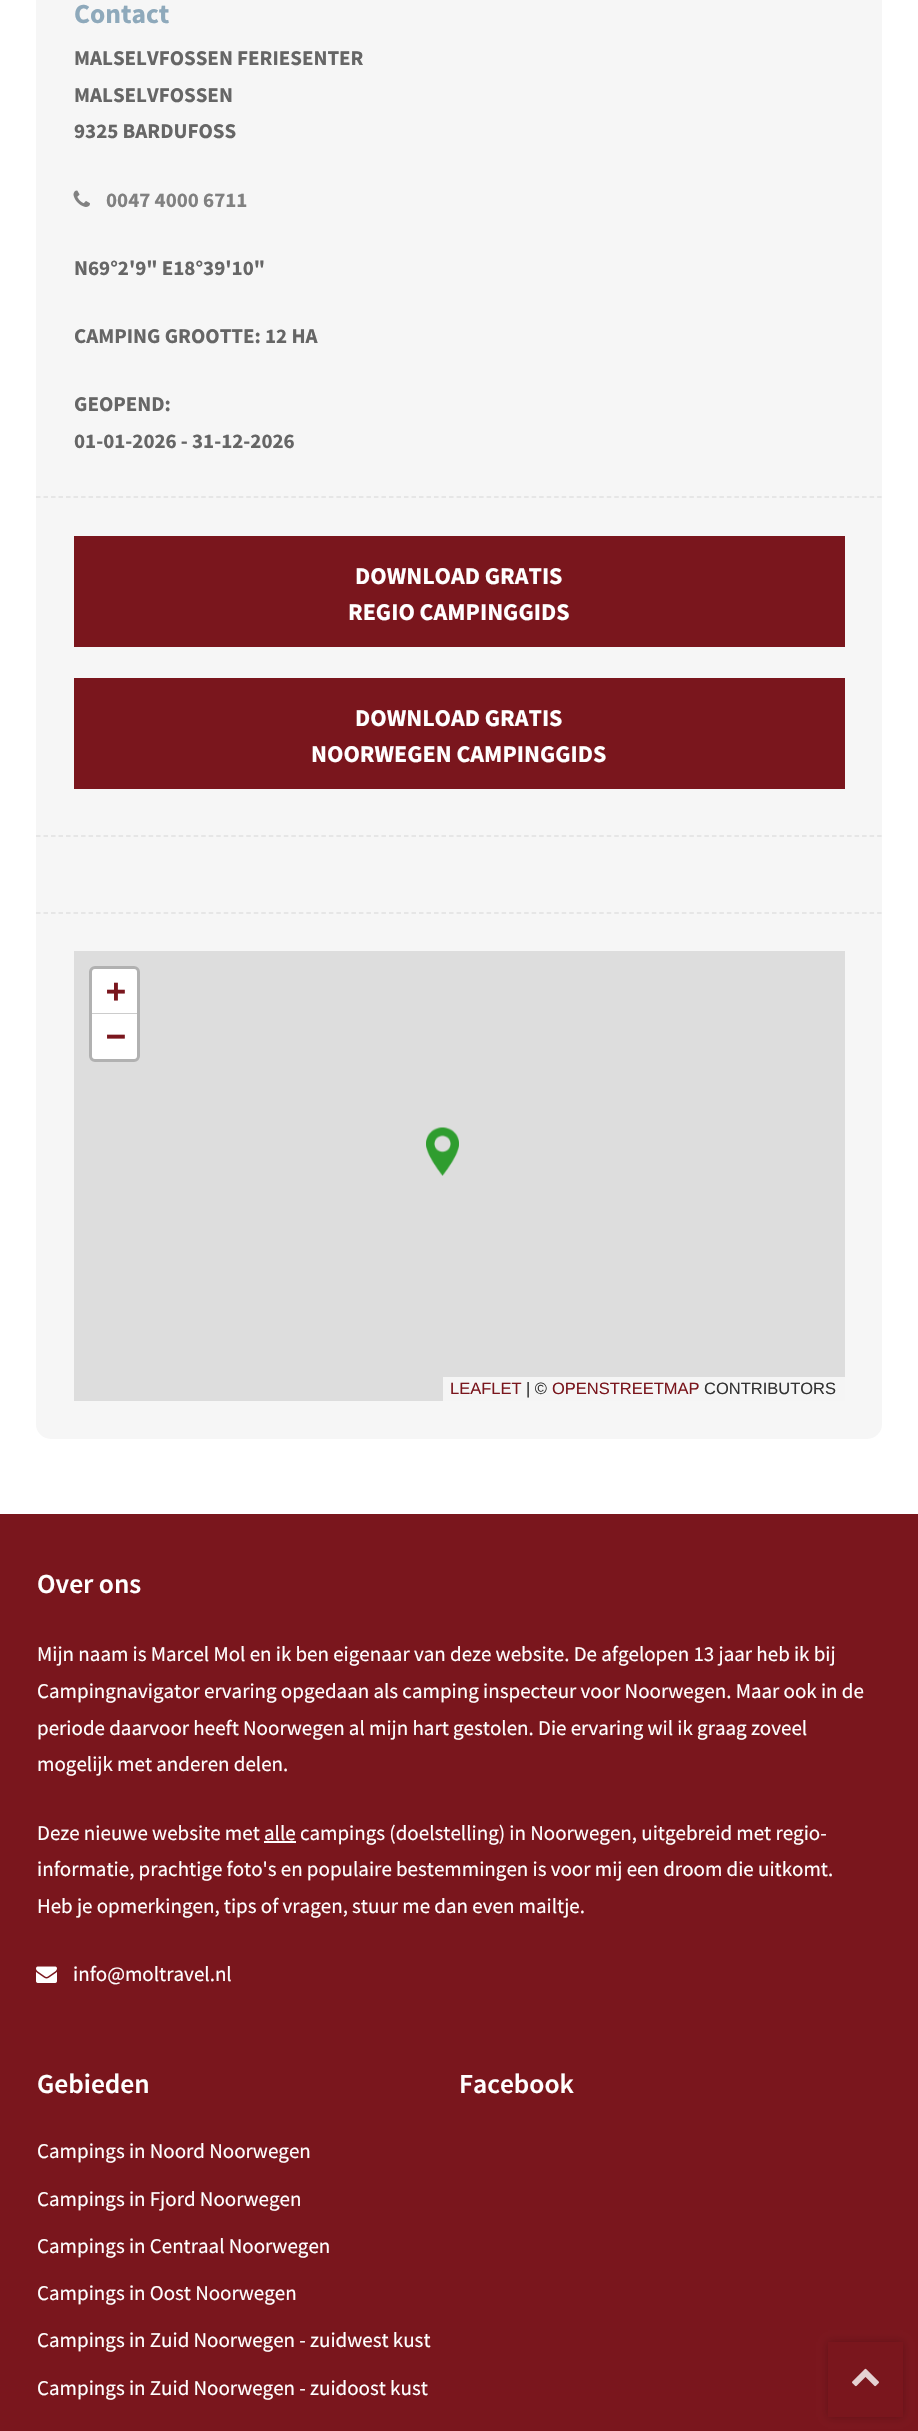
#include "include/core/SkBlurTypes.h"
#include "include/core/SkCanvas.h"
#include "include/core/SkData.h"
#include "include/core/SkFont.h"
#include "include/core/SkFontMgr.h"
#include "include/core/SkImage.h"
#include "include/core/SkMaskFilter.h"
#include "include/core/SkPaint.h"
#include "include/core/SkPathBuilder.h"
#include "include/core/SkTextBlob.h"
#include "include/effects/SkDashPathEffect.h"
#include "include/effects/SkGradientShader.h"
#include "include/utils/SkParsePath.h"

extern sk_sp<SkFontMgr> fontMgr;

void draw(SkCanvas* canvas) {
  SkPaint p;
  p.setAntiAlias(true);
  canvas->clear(SK_ColorWHITE);
  p.setColor(SkColorSetRGB(246, 246, 246));
  canvas->drawRoundRect(SkRect::MakeLTRB(36, -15, 882, 1439), 15, 15, p);
  p.setStyle(SkPaint::kStroke_Style);
  p.setStrokeWidth(1.5f);
  p.setColor(SkColorSetRGB(225, 225, 225));
  p.setPathEffect(SkDashPathEffect::Make({{4.5f, 3.01f}}, 0));
  canvas->drawPath(SkPathBuilder().moveTo(36, 497).lineTo(882, 497).detach(), p);
  p.setPathEffect(nullptr);
  canvas->drawImageRect(SkImages::DeferredFromEncodedData(SkData::MakeFromFileName("images/1.png")), SkRect::MakeLTRB(73, 190, 90, 207), SkSamplingOptions());
  p.setPathEffect(SkDashPathEffect::Make({{4.5f, 3.01f}}, 0));
  canvas->drawPath(SkPathBuilder().moveTo(36, 836).lineTo(882, 836).detach(), p);
  p.setPathEffect(nullptr);
  p.setStyle(SkPaint::kFill_Style);
  p.setColor(SkColorSetRGB(122, 22, 29));
  canvas->drawRect(SkRect::MakeLTRB(74, 536, 845, 647), p);
  canvas->drawRect(SkRect::MakeLTRB(74, 678, 845, 789), p);
  p.setStyle(SkPaint::kStroke_Style);
  p.setColor(SkColorSetRGB(225, 225, 225));
  p.setPathEffect(SkDashPathEffect::Make({{4.5f, 3.01f}}, 0));
  canvas->drawPath(SkPathBuilder().moveTo(36, 913).lineTo(882, 913).detach(), p);
  p.setPathEffect(nullptr);
  p.setStyle(SkPaint::kFill_Style);
  p.setColor(SkColorSetRGB(221, 221, 221));
  canvas->drawRect(SkRect::MakeLTRB(74, 951, 845, 1401), p);
  p.setStyle(SkPaint::kStroke_Style);
  p.setStrokeWidth(3);
  p.setColor(SkColorSetRGB(177, 177, 177));
  canvas->drawRoundRect(SkRect::MakeLTRB(90.5f, 967.5f, 138.5f, 1060.5f), 4.5f, 4.5f, p);
  p.setStyle(SkPaint::kFill_Style);
  p.setColor(SK_ColorWHITE);
  canvas->drawPath(SkPathBuilder().moveTo(95, 969).lineTo(134, 969).cubicTo(135.5f, 969, 137, 970.5f, 137, 972).lineTo(137, 1014).lineTo(92, 1014).lineTo(92, 972).cubicTo(92, 970.5f, 93.5f, 969, 95, 969).close().detach(), p);
  p.setColor(SkColorSetRGB(204, 204, 204));
  canvas->drawRect(SkRect::MakeLTRB(92, 1013, 137, 1014), p);
  p.setColor(SK_ColorWHITE);
  canvas->drawPath(SkPathBuilder().moveTo(92, 1014).lineTo(137, 1014).lineTo(137, 1056).cubicTo(137, 1057.5f, 135.5f, 1059, 134, 1059).lineTo(95, 1059).cubicTo(93.5f, 1059, 92, 1057.5f, 92, 1056).close().detach(), p);
  p.setColor(SkColorSetRGB(245, 245, 245));
  canvas->drawRect(SkRect::MakeLTRB(443, 1377, 845, 1401), p);
  canvas->drawImageRect(SkImages::DeferredFromEncodedData(SkData::MakeFromFileName("images/2.png")), SkRect::MakeLTRB(426, 1127, 459, 1176), SkSamplingOptions());
  p.setColor(SkColorSetRGB(122, 22, 29));
  canvas->drawRect(SkRect::MakeLTRB(0, 1514, 918, 2431), p);
  p.setColor(SK_ColorWHITE);
  canvas->drawRect(SkRect::MakeLTRB(264, 1841, 296, 1843), p);
  canvas->drawImageRect(SkImages::DeferredFromEncodedData(SkData::MakeFromFileName("images/3.png")), SkRect::MakeLTRB(36, 1966, 57, 1983), SkSamplingOptions());
  p.setColor(SkColorSetARGB(64, 24, 4, 6));
  p.setMaskFilter(SkMaskFilter::MakeBlur(kNormal_SkBlurStyle, 4));
  canvas->drawRect(SkRect::MakeLTRB(828, 2342, 903, 2417), p);
  p.setMaskFilter(nullptr);
  p.setColor(SkColorSetRGB(122, 22, 29));
  canvas->drawRect(SkRect::MakeLTRB(828, 2342, 903, 2417), p);
  canvas->drawImageRect(SkImages::DeferredFromEncodedData(SkData::MakeFromFileName("images/4.png")), SkRect::MakeLTRB(852, 2368, 879, 2387), SkSamplingOptions());
  SkFont font1(fontMgr->matchFamilyStyle("Source Sans Pro", SkFontStyle::Bold()), 27.5f);
  font1.setSubpixel(true);
  p.setColor(SkColorSetRGB(142, 169, 187));
  canvas->drawString("Contact", 74, 23, font1, p);
  SkFont font2(fontMgr->matchFamilyStyle("Source Sans Pro", SkFontStyle::Bold()), 21);
  font2.setSubpixel(true);
  p.setColor(SkColorSetRGB(102, 102, 102));
  canvas->drawString("MALSELVFOSSEN FERIESENTER", 74, 65, font2, p);
  canvas->drawString("MALSELVFOSSEN", 74, 102, font2, p);
  canvas->drawString("9325 BARDUFOSS", 74, 138, font2, p);
  p.setColor(SkColorSetRGB(129, 129, 129));
  canvas->drawString("0047 4000 6711", 106, 207, font2, p);
  p.setColor(SkColorSetRGB(102, 102, 102));
  canvas->drawString("N69°2'9\" E18°39'10\"", 74, 275, font2, p);
  canvas->drawString("CAMPING GROOTTE: 12 HA", 74, 343, font2, p);
  canvas->drawString("GEOPEND:", 74, 411, font2, p);
  canvas->drawString("01-01-2026 - 31-12-2026", 74, 448, font2, p);
  SkFont font3(fontMgr->matchFamilyStyle("Source Sans Pro", SkFontStyle::Bold()), 24);
  font3.setSubpixel(true);
  p.setColor(SK_ColorWHITE);
  canvas->drawString("DOWNLOAD GRATIS", 355, 584, font3, p);
  canvas->drawString("REGIO CAMPINGGIDS", 348, 620, font3, p);
  canvas->drawString("DOWNLOAD GRATIS", 355, 726, font3, p);
  canvas->drawString("NOORWEGEN CAMPINGGIDS", 311, 762, font3, p);
  SkFont font4(fontMgr->matchFamilyStyle("DejaVu Sans Mono", SkFontStyle::Bold()), 33);
  font4.setSubpixel(true);
  p.setColor(SkColorSetRGB(122, 22, 29));
  canvas->drawString("+", 106, 1002, font4, p);
  canvas->drawString("−", 106, 1047, font4, p);
  SkFont font5(fontMgr->matchFamilyStyle("Liberation Sans", SkFontStyle::Normal()), 16.5f);
  font5.setSubpixel(true);
  canvas->drawString("LEAFLET", 450, 1394, font5, p);
  p.setColor(SkColorSetRGB(51, 51, 51));
  canvas->drawString("| ©", 526, 1394, font5, p);
  p.setColor(SkColorSetRGB(122, 22, 29));
  canvas->drawString("OPENSTREETMAP", 552, 1394, font5, p);
  p.setColor(SkColorSetRGB(51, 51, 51));
  canvas->drawString("CONTRIBUTORS", 704, 1394, font5, p);
  SkFont font6(fontMgr->matchFamilyStyle("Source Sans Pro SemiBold", SkFontStyle(600, SkFontStyle::kNormal_Width, SkFontStyle::kUpright_Slant)), 27.5f);
  font6.setSubpixel(true);
  p.setColor(SK_ColorWHITE);
  canvas->drawString("Over ons", 37, 1593, font6, p);
  SkFont font7(fontMgr->matchFamilyStyle("Source Sans Pro", SkFontStyle::Normal()), 21);
  font7.setSubpixel(true);
  canvas->drawString("Mijn naam is Marcel Mol en ik ben eigenaar van deze website. De afgelopen 13 jaar heb ik bij", 37, 1661, font7, p);
  canvas->drawString("Campingnavigator ervaring opgedaan als camping inspecteur voor Noorwegen. Maar ook in de", 37, 1698, font7, p);
  canvas->drawString("periode daarvoor heeft Noorwegen al mijn hart gestolen. Die ervaring wil ik graag zoveel", 37, 1735, font7, p);
  canvas->drawString("mogelijk met anderen delen.", 37, 1771, font7, p);
  canvas->drawString("Deze nieuwe website met alle campings (doelstelling) in Noorwegen, uitgebreid met regio-", 37, 1840, font7, p);
  canvas->drawString("informatie, prachtige foto's en populaire bestemmingen is voor mij een droom die uitkomt.", 37, 1876, font7, p);
  canvas->drawString("Heb je opmerkingen, tips of vragen, stuur me dan even mailtje.", 37, 1913, font7, p);
  canvas->drawString("info@moltravel.nl", 73, 1981, font7, p);
  canvas->drawString("Gebieden", 37, 2093, font6, p);
  canvas->drawString("Campings in Noord Noorwegen", 37, 2158, font7, p);
  canvas->drawString("Campings in Fjord Noorwegen", 37, 2206, font7, p);
  canvas->drawString("Campings in Centraal Noorwegen", 37, 2253, font7, p);
  canvas->drawString("Campings in Oost Noorwegen", 37, 2300, font7, p);
  canvas->drawString("Campings in Zuid Noorwegen - zuidwest kust", 37, 2347, font7, p);
  canvas->drawString("Campings in Zuid Noorwegen - zuidoost kust", 37, 2395, font7, p);
  canvas->drawString("Facebook", 459, 2093, font6, p);
}
